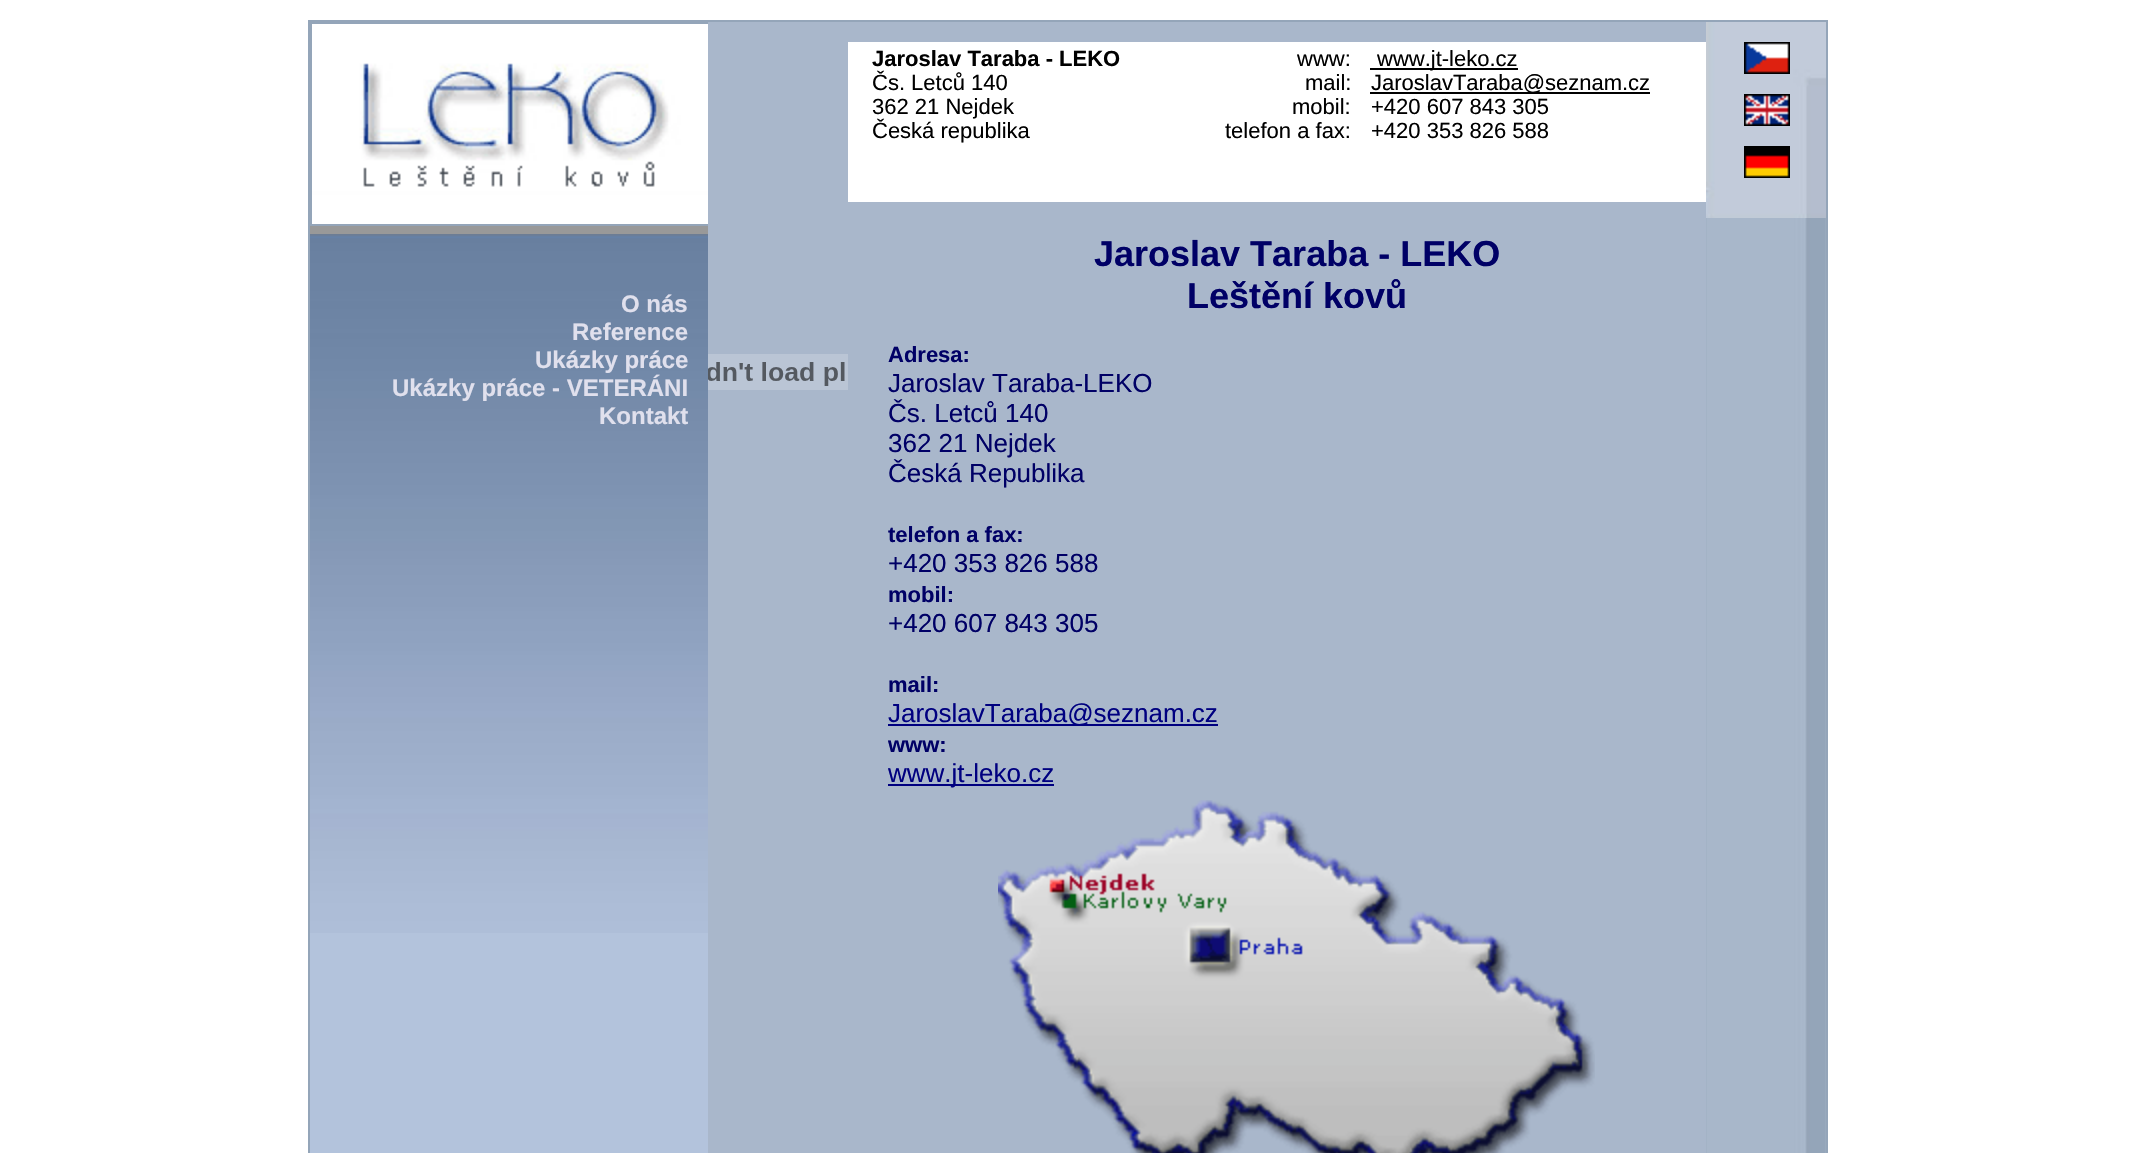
#include "include/core/SkBlurTypes.h"
#include "include/core/SkCanvas.h"
#include "include/core/SkData.h"
#include "include/core/SkFont.h"
#include "include/core/SkFontMgr.h"
#include "include/core/SkImage.h"
#include "include/core/SkMaskFilter.h"
#include "include/core/SkPaint.h"
#include "include/core/SkPathBuilder.h"
#include "include/core/SkTextBlob.h"
#include "include/effects/SkDashPathEffect.h"
#include "include/effects/SkGradientShader.h"
#include "include/utils/SkParsePath.h"

extern sk_sp<SkFontMgr> fontMgr;

void draw(SkCanvas* canvas) {
  SkPaint p;
  p.setAntiAlias(true);
  canvas->clear(SK_ColorWHITE);
  p.setColor(SkColorSetRGB(169, 183, 203));
  canvas->drawRect(SkRect::MakeLTRB(848, 22, 1706, 1153), p);
  p.setColor(SkColorSetRGB(148, 165, 185));
  canvas->drawRect(SkRect::MakeLTRB(308, 20, 1828, 22), p);
  canvas->drawRect(SkRect::MakeLTRB(1826, 20, 1828, 1153), p);
  canvas->drawRect(SkRect::MakeLTRB(308, 20, 310, 1153), p);
  p.setColor(SkColorSetRGB(179, 195, 220));
  canvas->drawRect(SkRect::MakeLTRB(310, 933, 708, 1153), p);
  canvas->drawImageRect(SkImages::DeferredFromEncodedData(SkData::MakeFromFileName("images/1.png")), SkRect::MakeLTRB(312, 24, 708, 224), SkSamplingOptions());
  p.setStyle(SkPaint::kStroke_Style);
  p.setStrokeWidth(2);
  p.setColor(SkColorSetRGB(148, 165, 185));
  canvas->drawRect(SkRect::MakeLTRB(311, 23, 711, 225), p);
  p.setStyle(SkPaint::kFill_Style);
  p.setColor(SkColorSetRGB(153, 153, 153));
  canvas->drawRect(SkRect::MakeLTRB(310, 226, 708, 234), p);
  canvas->drawImageRect(SkImages::DeferredFromEncodedData(SkData::MakeFromFileName("images/2.png")), SkRect::MakeLTRB(310, 234, 708, 933), SkSamplingOptions());
  p.setColor(SkColorSetRGB(169, 183, 203));
  canvas->drawRect(SkRect::MakeLTRB(708, 22, 848, 1153), p);
  canvas->drawImageRect(SkImages::DeferredFromEncodedData(SkData::MakeFromFileName("images/3.png")), SkRect::MakeLTRB(708, 354, 848, 390), SkSamplingOptions());
  p.setColor(SK_ColorWHITE);
  canvas->drawRect(SkRect::MakeLTRB(848, 42, 1706, 202), p);
  p.setColor(SK_ColorBLACK);
  canvas->drawRect(SkRect::MakeLTRB(1370, 68, 1518, 70), p);
  canvas->drawRect(SkRect::MakeLTRB(1370, 92, 1650, 94), p);
  p.setColor(SkColorSetRGB(0, 0, 128));
  canvas->drawRect(SkRect::MakeLTRB(888, 724, 1218, 726), p);
  canvas->drawRect(SkRect::MakeLTRB(888, 784, 1054, 786), p);
  canvas->drawImageRect(SkImages::DeferredFromEncodedData(SkData::MakeFromFileName("images/4.png")), SkRect::MakeLTRB(998, 800, 1595, 1153), SkSamplingOptions());
  canvas->drawImageRect(SkImages::DeferredFromEncodedData(SkData::MakeFromFileName("images/5.png")), SkRect::MakeLTRB(1706, 218, 1826, 1153), SkSamplingOptions());
  canvas->drawImageRect(SkImages::DeferredFromEncodedData(SkData::MakeFromFileName("images/6.png")), SkRect::MakeLTRB(1706, 22, 1826, 218), SkSamplingOptions());
  canvas->drawImageRect(SkImages::DeferredFromEncodedData(SkData::MakeFromFileName("images/7.png")), SkRect::MakeLTRB(1744, 42, 1790, 74), SkSamplingOptions());
  canvas->drawImageRect(SkImages::DeferredFromEncodedData(SkData::MakeFromFileName("images/8.png")), SkRect::MakeLTRB(1744, 94, 1790, 126), SkSamplingOptions());
  canvas->drawImageRect(SkImages::DeferredFromEncodedData(SkData::MakeFromFileName("images/9.png")), SkRect::MakeLTRB(1744, 146, 1790, 178), SkSamplingOptions());
  SkFont font1(fontMgr->matchFamilyStyle("Liberation Sans", SkFontStyle::Bold()), 24);
  font1.setSubpixel(true);
  p.setColor(SkColorSetRGB(224, 224, 237));
  canvas->drawString("O nás", 621, 312, font1, p);
  canvas->drawString("Reference", 572, 340, font1, p);
  canvas->drawString("Ukázky práce", 535, 368, font1, p);
  canvas->drawString("Ukázky práce - VETERÁNI", 392, 396, font1, p);
  canvas->drawString("Kontakt", 599, 424, font1, p);
  SkFont font2(fontMgr->matchFamilyStyle("Liberation Sans", SkFontStyle::Bold()), 22);
  font2.setSubpixel(true);
  p.setColor(SK_ColorBLACK);
  canvas->drawString("Jaroslav Taraba - LEKO", 872, 66, font2, p);
  SkFont font3(fontMgr->matchFamilyStyle("Liberation Sans", SkFontStyle::Normal()), 22);
  font3.setSubpixel(true);
  canvas->drawString("Čs. Letců 140", 872, 90, font3, p);
  canvas->drawString("362 21 Nejdek", 872, 114, font3, p);
  canvas->drawString("Česká republika", 872, 138, font3, p);
  canvas->drawString("www:", 1297, 66, font3, p);
  canvas->drawString("www.jt-leko.cz", 1377, 66, font3, p);
  canvas->drawString("mail:", 1305, 90, font3, p);
  canvas->drawString("JaroslavTaraba@seznam.cz", 1371, 90, font3, p);
  canvas->drawString("mobil:", 1292, 114, font3, p);
  canvas->drawString("+420 607 843 305", 1371, 114, font3, p);
  canvas->drawString("telefon a fax:", 1225, 138, font3, p);
  canvas->drawString("+420 353 826 588", 1371, 138, font3, p);
  SkFont font4(fontMgr->matchFamilyStyle("Liberation Sans", SkFontStyle::Bold()), 36);
  font4.setSubpixel(true);
  p.setColor(SkColorSetRGB(0, 0, 102));
  canvas->drawString("Jaroslav Taraba - LEKO", 1094, 266, font4, p);
  canvas->drawString("Leštění kovů", 1187, 308, font4, p);
  canvas->drawString("Adresa:", 888, 362, font2, p);
  SkFont font5(fontMgr->matchFamilyStyle("Liberation Sans", SkFontStyle::Normal()), 26);
  font5.setSubpixel(true);
  canvas->drawString("Jaroslav Taraba-LEKO", 888, 392, font5, p);
  canvas->drawString("Čs. Letců 140", 888, 422, font5, p);
  canvas->drawString("362 21 Nejdek", 888, 452, font5, p);
  canvas->drawString("Česká Republika", 888, 482, font5, p);
  canvas->drawString("telefon a fax:", 888, 542, font2, p);
  canvas->drawString("+420 353 826 588", 888, 572, font5, p);
  canvas->drawString("mobil:", 888, 602, font2, p);
  canvas->drawString("+420 607 843 305", 888, 632, font5, p);
  canvas->drawString("mail:", 888, 692, font2, p);
  p.setColor(SkColorSetRGB(0, 0, 128));
  canvas->drawString("JaroslavTaraba@seznam.cz", 888, 722, font5, p);
  p.setColor(SkColorSetRGB(0, 0, 102));
  canvas->drawString("www:", 888, 752, font2, p);
  p.setColor(SkColorSetRGB(0, 0, 128));
  canvas->drawString("www.jt-leko.cz", 888, 782, font5, p);
}
